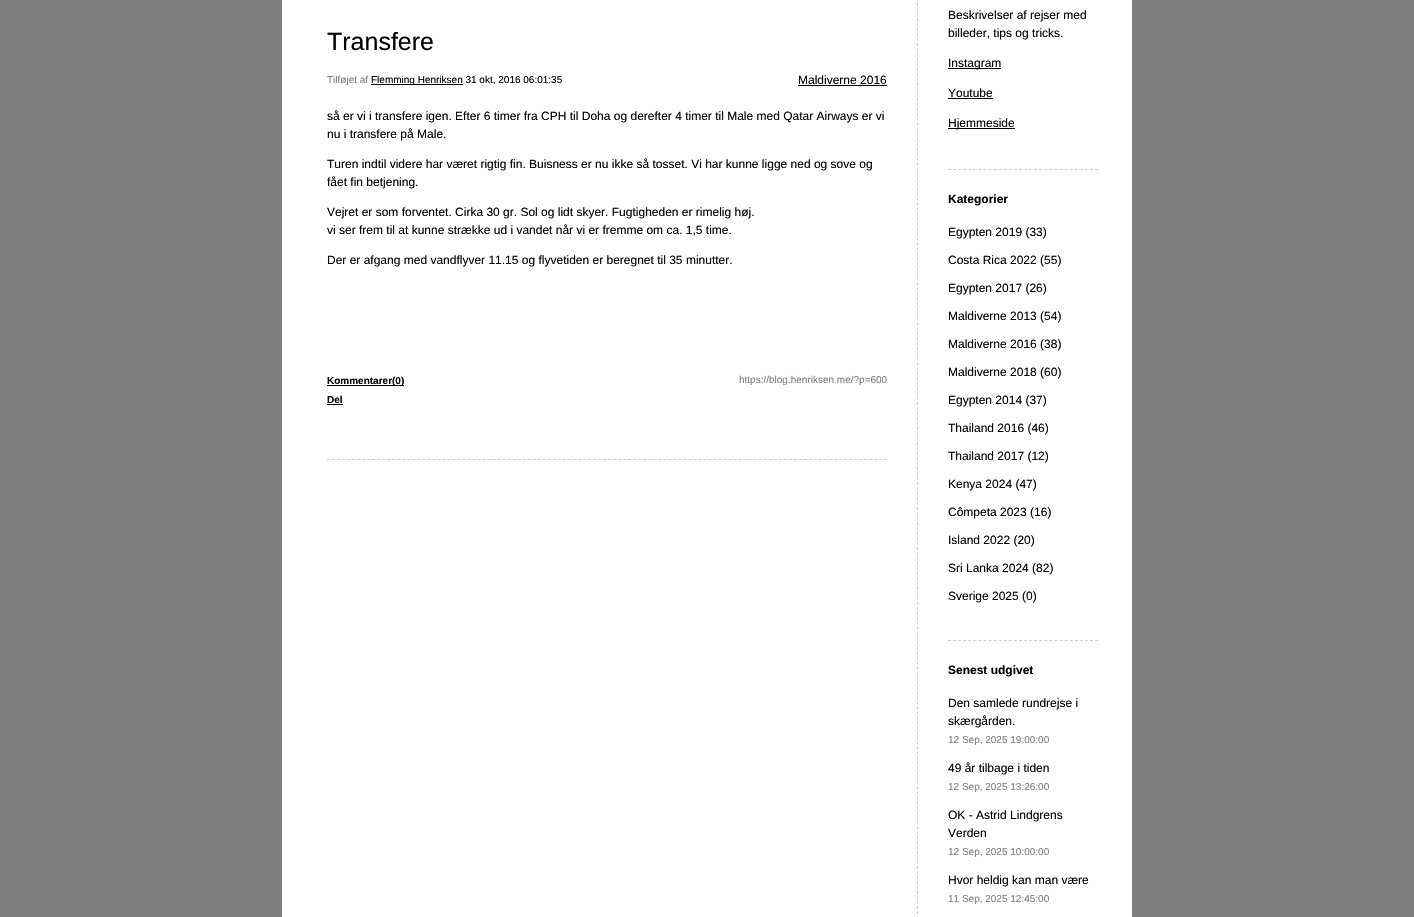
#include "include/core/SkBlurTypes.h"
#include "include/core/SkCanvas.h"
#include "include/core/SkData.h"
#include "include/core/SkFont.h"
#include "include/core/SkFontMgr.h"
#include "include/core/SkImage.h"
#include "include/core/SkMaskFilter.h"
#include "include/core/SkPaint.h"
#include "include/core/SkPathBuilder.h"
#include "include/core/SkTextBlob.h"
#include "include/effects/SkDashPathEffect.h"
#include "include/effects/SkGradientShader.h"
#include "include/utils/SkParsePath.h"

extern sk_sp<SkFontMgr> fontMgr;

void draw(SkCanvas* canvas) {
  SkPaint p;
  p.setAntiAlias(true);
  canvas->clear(SkColorSetRGB(126, 126, 126));
  p.setColor(SK_ColorWHITE);
  canvas->drawRect(SkRect::MakeLTRB(282, 0, 1132, 917), p);
  p.setStyle(SkPaint::kStroke_Style);
  p.setStrokeWidth(1);
  p.setColor(SkColorSetRGB(204, 204, 204));
  p.setPathEffect(SkDashPathEffect::Make({{3, 2.02f}}, 0));
  canvas->drawPath(SkPathBuilder().moveTo(327, 459.5f).lineTo(887, 459.5f).detach(), p);
  p.setPathEffect(nullptr);
  p.setStyle(SkPaint::kFill_Style);
  p.setColor(SK_ColorBLACK);
  canvas->drawRect(SkRect::MakeLTRB(371, 84, 463, 85), p);
  canvas->drawRect(SkRect::MakeLTRB(798, 85, 887, 86), p);
  canvas->drawRect(SkRect::MakeLTRB(327, 385, 404, 386), p);
  canvas->drawRect(SkRect::MakeLTRB(327, 404, 343, 405), p);
  p.setStyle(SkPaint::kStroke_Style);
  p.setColor(SkColorSetRGB(204, 204, 204));
  p.setPathEffect(SkDashPathEffect::Make({{3, 1.99f}}, 0));
  canvas->drawPath(SkPathBuilder().moveTo(917.5f, -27).lineTo(917.5f, 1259).detach(), p);
  p.setPathEffect(nullptr);
  p.setPathEffect(SkDashPathEffect::Make({{3, 2.07f}}, 0));
  canvas->drawPath(SkPathBuilder().moveTo(948, 169.5f).lineTo(1098, 169.5f).detach(), p);
  p.setPathEffect(nullptr);
  p.setStyle(SkPaint::kFill_Style);
  p.setColor(SK_ColorBLACK);
  canvas->drawRect(SkRect::MakeLTRB(948, 68, 1001, 69), p);
  canvas->drawRect(SkRect::MakeLTRB(948, 98, 993, 99), p);
  canvas->drawRect(SkRect::MakeLTRB(948, 128, 1015, 129), p);
  p.setStyle(SkPaint::kStroke_Style);
  p.setColor(SkColorSetRGB(204, 204, 204));
  p.setPathEffect(SkDashPathEffect::Make({{3, 2.07f}}, 0));
  canvas->drawPath(SkPathBuilder().moveTo(948, 640.5f).lineTo(1098, 640.5f).detach(), p);
  p.setPathEffect(nullptr);
  SkFont font1(fontMgr->matchFamilyStyle("Liberation Sans", SkFontStyle::Normal()), 25);
  font1.setSubpixel(true);
  p.setStyle(SkPaint::kFill_Style);
  p.setColor(SK_ColorBLACK);
  canvas->drawString("Transfere", 327, 50, font1, p);
  SkFont font2(fontMgr->matchFamilyStyle("Liberation Sans", SkFontStyle::Normal()), 10);
  font2.setSubpixel(true);
  p.setColor(SkColorSetRGB(126, 126, 126));
  canvas->drawString("Tilføjet af", 327, 83, font2, p);
  p.setColor(SK_ColorBLACK);
  canvas->drawString("Flemming Henriksen 31 okt, 2016 06:01:35", 371, 83, font2, p);
  SkFont font3(fontMgr->matchFamilyStyle("Liberation Sans", SkFontStyle::Normal()), 12);
  font3.setSubpixel(true);
  canvas->drawString("Maldiverne 2016", 798, 84, font3, p);
  canvas->drawString("så er vi i transfere igen. Efter 6 timer fra CPH til Doha og derefter 4 timer til Male med Qatar Airways er vi", 327, 120, font3, p);
  canvas->drawString("nu i transfere på Male.", 327, 138, font3, p);
  canvas->drawString("Turen indtil videre har været rigtig fin. Buisness er nu ikke så tosset. Vi har kunne ligge ned og sove og", 327, 168, font3, p);
  canvas->drawString("fået fin betjening.", 327, 186, font3, p);
  canvas->drawString("Vejret er som forventet. Cirka 30 gr. Sol og lidt skyer. Fugtigheden er rimelig høj.", 327, 216, font3, p);
  canvas->drawString("vi ser frem til at kunne strække ud i vandet når vi er fremme om ca. 1,5 time.", 327, 234, font3, p);
  canvas->drawString("Der er afgang med vandflyver 11.15 og flyvetiden er beregnet til 35 minutter.", 327, 264, font3, p);
  SkFont font4(fontMgr->matchFamilyStyle("Liberation Sans", SkFontStyle::Bold()), 10);
  font4.setSubpixel(true);
  canvas->drawString("Kommentarer(0)", 327, 384, font4, p);
  p.setColor(SkColorSetRGB(126, 126, 126));
  canvas->drawString("https://blog.henriksen.me/?p=600", 739, 383, font2, p);
  p.setColor(SK_ColorBLACK);
  canvas->drawString("Del", 327, 403, font4, p);
  canvas->drawString("Beskrivelser af rejser med", 948, 19, font3, p);
  canvas->drawString("billeder, tips og tricks.", 948, 37, font3, p);
  canvas->drawString("Instagram", 948, 67, font3, p);
  canvas->drawString("Youtube", 948, 97, font3, p);
  canvas->drawString("Hjemmeside", 948, 127, font3, p);
  SkFont font5(fontMgr->matchFamilyStyle("Liberation Sans", SkFontStyle::Bold()), 12);
  font5.setSubpixel(true);
  canvas->drawString("Kategorier", 948, 203, font5, p);
  canvas->drawString("Egypten 2019 (33)", 948, 236, font3, p);
  canvas->drawString("Costa Rica 2022 (55)", 948, 264, font3, p);
  canvas->drawString("Egypten 2017 (26)", 948, 292, font3, p);
  canvas->drawString("Maldiverne 2013 (54)", 948, 320, font3, p);
  canvas->drawString("Maldiverne 2016 (38)", 948, 348, font3, p);
  canvas->drawString("Maldiverne 2018 (60)", 948, 376, font3, p);
  canvas->drawString("Egypten 2014 (37)", 948, 404, font3, p);
  canvas->drawString("Thailand 2016 (46)", 948, 432, font3, p);
  canvas->drawString("Thailand 2017 (12)", 948, 460, font3, p);
  canvas->drawString("Kenya 2024 (47)", 948, 488, font3, p);
  canvas->drawString("Cômpeta 2023 (16)", 948, 516, font3, p);
  canvas->drawString("Island 2022 (20)", 948, 544, font3, p);
  canvas->drawString("Sri Lanka 2024 (82)", 948, 572, font3, p);
  canvas->drawString("Sverige 2025 (0)", 948, 600, font3, p);
  canvas->drawString("Senest udgivet", 948, 674, font5, p);
  canvas->drawString("Den samlede rundrejse i", 948, 707, font3, p);
  canvas->drawString("skærgården.", 948, 725, font3, p);
  p.setColor(SkColorSetRGB(126, 126, 126));
  canvas->drawString("12 Sep, 2025 19:00:00", 948, 743, font2, p);
  p.setColor(SK_ColorBLACK);
  canvas->drawString("49 år tilbage i tiden", 948, 772, font3, p);
  p.setColor(SkColorSetRGB(126, 126, 126));
  canvas->drawString("12 Sep, 2025 13:26:00", 948, 790, font2, p);
  p.setColor(SK_ColorBLACK);
  canvas->drawString("OK - Astrid Lindgrens", 948, 819, font3, p);
  canvas->drawString("Verden", 948, 837, font3, p);
  p.setColor(SkColorSetRGB(126, 126, 126));
  canvas->drawString("12 Sep, 2025 10:00:00", 948, 855, font2, p);
  p.setColor(SK_ColorBLACK);
  canvas->drawString("Hvor heldig kan man være", 948, 884, font3, p);
  p.setColor(SkColorSetRGB(126, 126, 126));
  canvas->drawString("11 Sep, 2025 12:45:00", 948, 902, font2, p);
}
